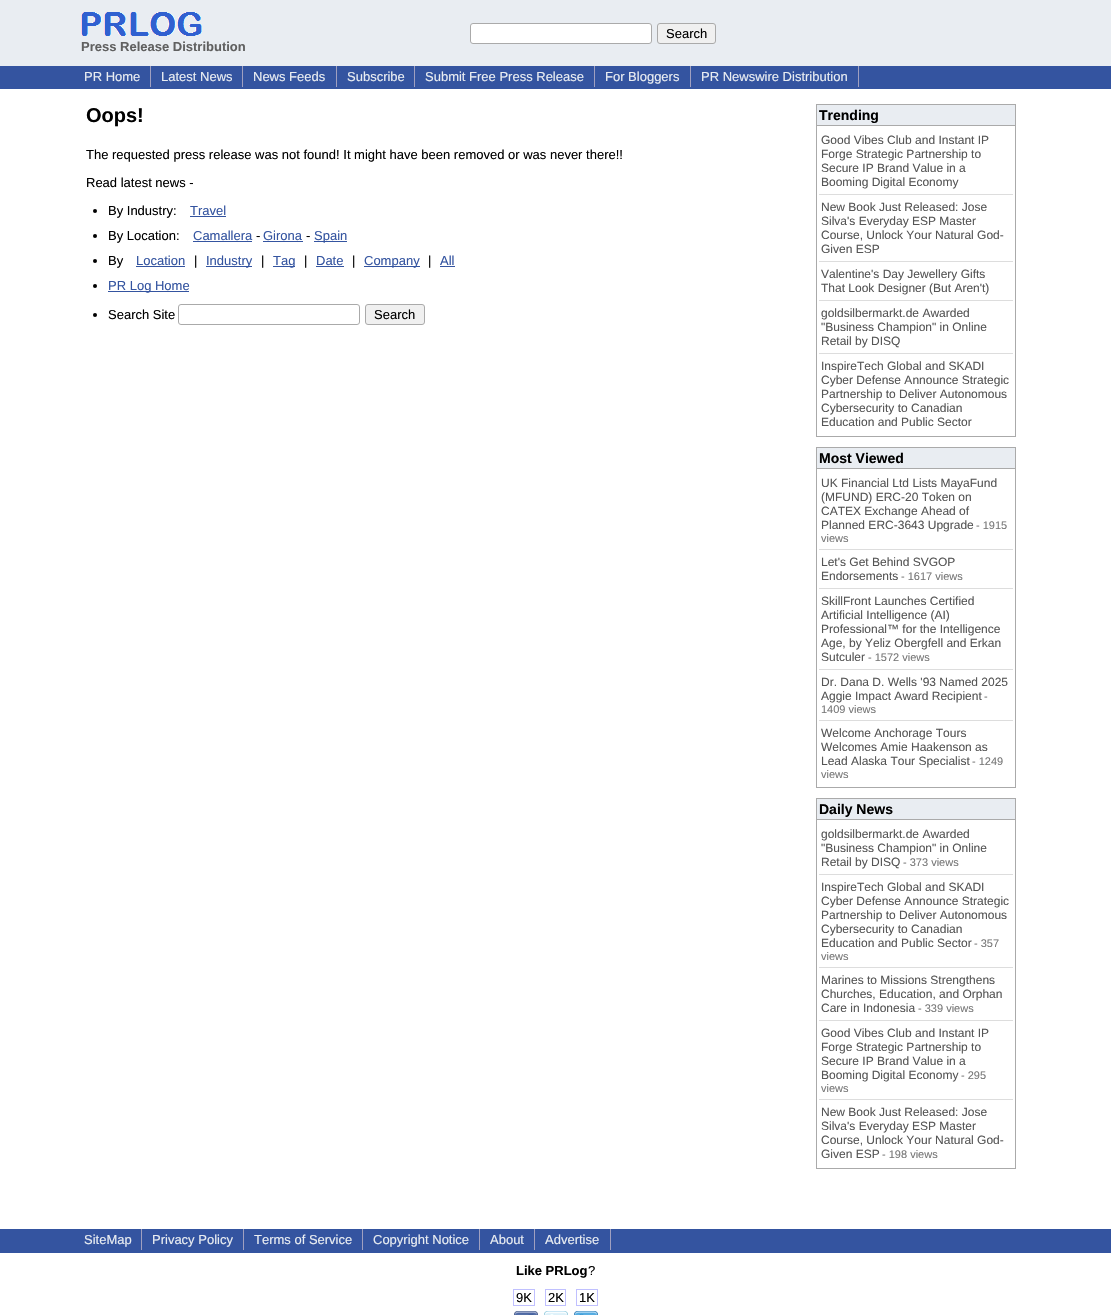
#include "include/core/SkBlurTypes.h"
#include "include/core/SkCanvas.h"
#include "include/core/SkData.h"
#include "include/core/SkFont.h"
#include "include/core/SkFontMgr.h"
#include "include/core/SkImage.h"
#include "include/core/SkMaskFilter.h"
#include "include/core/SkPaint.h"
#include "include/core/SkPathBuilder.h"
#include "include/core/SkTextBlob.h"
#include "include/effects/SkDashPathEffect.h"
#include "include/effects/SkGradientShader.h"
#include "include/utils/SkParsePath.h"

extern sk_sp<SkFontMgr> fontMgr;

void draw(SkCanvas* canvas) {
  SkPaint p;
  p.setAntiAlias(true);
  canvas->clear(SK_ColorWHITE);
  p.setColor(SkColorSetRGB(233, 237, 242));
  canvas->drawRect(SkRect::MakeLTRB(0, 0, 1111, 66), p);
  p.setColor(SK_ColorWHITE);
  canvas->drawRoundRect(SkRect::MakeLTRB(470.5f, 23.5f, 651.5f, 43.5f), 2.5f, 2.5f, p);
  p.setStyle(SkPaint::kStroke_Style);
  p.setStrokeWidth(1);
  p.setColor(SkColorSetRGB(170, 170, 170));
  canvas->drawRoundRect(SkRect::MakeLTRB(470.5f, 23.5f, 651.5f, 43.5f), 2.5f, 2.5f, p);
  p.setStyle(SkPaint::kFill_Style);
  p.setColor(SkColorSetRGB(240, 240, 240));
  canvas->drawRoundRect(SkRect::MakeLTRB(657.5f, 23.5f, 715.5f, 43.5f), 2.5f, 2.5f, p);
  p.setStyle(SkPaint::kStroke_Style);
  p.setColor(SkColorSetRGB(170, 170, 170));
  canvas->drawRoundRect(SkRect::MakeLTRB(657.5f, 23.5f, 715.5f, 43.5f), 2.5f, 2.5f, p);
  canvas->drawImageRect(SkImages::DeferredFromEncodedData(SkData::MakeFromFileName("images/1.png")), SkRect::MakeLTRB(81, 12, 202, 36), SkSamplingOptions());
  p.setStyle(SkPaint::kFill_Style);
  p.setColor(SkColorSetRGB(52, 84, 160));
  canvas->drawRect(SkRect::MakeLTRB(0, 66, 1111, 89), p);
  p.setColor(SkColorSetRGB(160, 160, 192));
  canvas->drawRect(SkRect::MakeLTRB(150, 66, 151, 87), p);
  canvas->drawRect(SkRect::MakeLTRB(242, 66, 243, 87), p);
  canvas->drawRect(SkRect::MakeLTRB(336, 66, 337, 87), p);
  canvas->drawRect(SkRect::MakeLTRB(414, 66, 415, 87), p);
  canvas->drawRect(SkRect::MakeLTRB(594, 66, 595, 87), p);
  canvas->drawRect(SkRect::MakeLTRB(690, 66, 691, 87), p);
  canvas->drawRect(SkRect::MakeLTRB(858, 66, 859, 87), p);
  p.setColor(SK_ColorBLACK);
  canvas->drawCircle(95, 211, 2, p);
  p.setColor(SkColorSetRGB(52, 84, 160));
  canvas->drawRect(SkRect::MakeLTRB(190, 216, 226, 217), p);
  p.setColor(SK_ColorBLACK);
  canvas->drawCircle(95, 236, 2, p);
  p.setColor(SkColorSetRGB(52, 84, 160));
  canvas->drawRect(SkRect::MakeLTRB(193, 241, 252, 242), p);
  canvas->drawRect(SkRect::MakeLTRB(263, 241, 303, 242), p);
  canvas->drawRect(SkRect::MakeLTRB(314, 241, 347, 242), p);
  p.setColor(SK_ColorBLACK);
  canvas->drawCircle(95, 261, 2, p);
  p.setColor(SkColorSetRGB(52, 84, 160));
  canvas->drawRect(SkRect::MakeLTRB(136, 266, 185, 267), p);
  canvas->drawRect(SkRect::MakeLTRB(206, 266, 252, 267), p);
  canvas->drawRect(SkRect::MakeLTRB(273, 266, 295, 267), p);
  canvas->drawRect(SkRect::MakeLTRB(316, 266, 344, 267), p);
  canvas->drawRect(SkRect::MakeLTRB(364, 266, 420, 267), p);
  canvas->drawRect(SkRect::MakeLTRB(440, 266, 455, 267), p);
  p.setColor(SK_ColorBLACK);
  canvas->drawCircle(95, 286, 2, p);
  p.setColor(SkColorSetRGB(52, 84, 160));
  canvas->drawRect(SkRect::MakeLTRB(108, 291, 189, 292), p);
  p.setColor(SK_ColorBLACK);
  canvas->drawCircle(95, 315, 2, p);
  p.setStyle(SkPaint::kStroke_Style);
  p.setColor(SkColorSetRGB(170, 170, 170));
  canvas->drawRoundRect(SkRect::MakeLTRB(178.5f, 304.5f, 359.5f, 324.5f), 2.5f, 2.5f, p);
  p.setStyle(SkPaint::kFill_Style);
  p.setColor(SkColorSetRGB(240, 240, 240));
  canvas->drawRoundRect(SkRect::MakeLTRB(365.5f, 304.5f, 424.5f, 324.5f), 2.5f, 2.5f, p);
  p.setStyle(SkPaint::kStroke_Style);
  p.setColor(SkColorSetRGB(170, 170, 170));
  canvas->drawRoundRect(SkRect::MakeLTRB(365.5f, 304.5f, 424.5f, 324.5f), 2.5f, 2.5f, p);
  p.setStyle(SkPaint::kFill_Style);
  p.setColor(SkColorSetRGB(233, 237, 242));
  canvas->drawRect(SkRect::MakeLTRB(817, 105, 1015, 125), p);
  p.setColor(SkColorSetRGB(170, 170, 170));
  canvas->drawRect(SkRect::MakeLTRB(816, 104, 1016, 105), p);
  canvas->drawRect(SkRect::MakeLTRB(816, 125, 1016, 126), p);
  canvas->drawRect(SkRect::MakeLTRB(1015, 125, 1016, 437), p);
  canvas->drawRect(SkRect::MakeLTRB(1015, 104, 1016, 126), p);
  canvas->drawRect(SkRect::MakeLTRB(816, 436, 1016, 437), p);
  canvas->drawRect(SkRect::MakeLTRB(816, 125, 817, 437), p);
  canvas->drawRect(SkRect::MakeLTRB(816, 104, 817, 126), p);
  p.setColor(SkColorSetRGB(221, 221, 221));
  canvas->drawRect(SkRect::MakeLTRB(819, 194, 1013, 195), p);
  canvas->drawRect(SkRect::MakeLTRB(819, 261, 1013, 262), p);
  canvas->drawRect(SkRect::MakeLTRB(819, 300, 1013, 301), p);
  canvas->drawRect(SkRect::MakeLTRB(819, 353, 1013, 354), p);
  p.setColor(SkColorSetRGB(233, 237, 242));
  canvas->drawRect(SkRect::MakeLTRB(817, 448, 1015, 468), p);
  p.setColor(SkColorSetRGB(170, 170, 170));
  canvas->drawRect(SkRect::MakeLTRB(816, 447, 1016, 448), p);
  canvas->drawRect(SkRect::MakeLTRB(816, 468, 1016, 469), p);
  canvas->drawRect(SkRect::MakeLTRB(1015, 468, 1016, 788), p);
  canvas->drawRect(SkRect::MakeLTRB(1015, 447, 1016, 469), p);
  canvas->drawRect(SkRect::MakeLTRB(816, 787, 1016, 788), p);
  canvas->drawRect(SkRect::MakeLTRB(816, 468, 817, 788), p);
  canvas->drawRect(SkRect::MakeLTRB(816, 447, 817, 469), p);
  p.setColor(SkColorSetRGB(221, 221, 221));
  canvas->drawRect(SkRect::MakeLTRB(819, 549, 1013, 550), p);
  canvas->drawRect(SkRect::MakeLTRB(819, 588, 1013, 589), p);
  canvas->drawRect(SkRect::MakeLTRB(819, 669, 1013, 670), p);
  canvas->drawRect(SkRect::MakeLTRB(819, 720, 1013, 721), p);
  p.setColor(SkColorSetRGB(233, 237, 242));
  canvas->drawRect(SkRect::MakeLTRB(817, 799, 1015, 819), p);
  p.setColor(SkColorSetRGB(170, 170, 170));
  canvas->drawRect(SkRect::MakeLTRB(816, 798, 1016, 799), p);
  canvas->drawRect(SkRect::MakeLTRB(816, 819, 1016, 820), p);
  canvas->drawRect(SkRect::MakeLTRB(1015, 819, 1016, 1169), p);
  canvas->drawRect(SkRect::MakeLTRB(1015, 798, 1016, 820), p);
  canvas->drawRect(SkRect::MakeLTRB(816, 1168, 1016, 1169), p);
  canvas->drawRect(SkRect::MakeLTRB(816, 819, 817, 1169), p);
  canvas->drawRect(SkRect::MakeLTRB(816, 798, 817, 820), p);
  p.setColor(SkColorSetRGB(221, 221, 221));
  canvas->drawRect(SkRect::MakeLTRB(819, 874, 1013, 875), p);
  canvas->drawRect(SkRect::MakeLTRB(819, 967, 1013, 968), p);
  canvas->drawRect(SkRect::MakeLTRB(819, 1020, 1013, 1021), p);
  canvas->drawRect(SkRect::MakeLTRB(819, 1099, 1013, 1100), p);
  p.setColor(SkColorSetRGB(52, 84, 160));
  canvas->drawRect(SkRect::MakeLTRB(0, 1229, 1111, 1253), p);
  p.setColor(SkColorSetRGB(160, 160, 192));
  canvas->drawRect(SkRect::MakeLTRB(141, 1229, 142, 1250), p);
  canvas->drawRect(SkRect::MakeLTRB(243, 1229, 244, 1250), p);
  canvas->drawRect(SkRect::MakeLTRB(362, 1229, 363, 1250), p);
  canvas->drawRect(SkRect::MakeLTRB(479, 1229, 480, 1250), p);
  canvas->drawRect(SkRect::MakeLTRB(534, 1229, 535, 1250), p);
  canvas->drawRect(SkRect::MakeLTRB(610, 1229, 611, 1250), p);
  p.setStyle(SkPaint::kStroke_Style);
  p.setColor(SkColorSetRGB(192, 192, 255));
  canvas->drawRect(SkRect::MakeLTRB(513.5f, 1289.5f, 534.5f, 1305.5f), p);
  canvas->drawRect(SkRect::MakeLTRB(545.5f, 1289.5f, 565.5f, 1305.5f), p);
  canvas->drawRect(SkRect::MakeLTRB(576.5f, 1289.5f, 597.5f, 1305.5f), p);
  canvas->drawImageRect(SkImages::DeferredFromEncodedData(SkData::MakeFromFileName("images/2.png")), SkRect::MakeLTRB(514, 1311, 598, 1315), SkSamplingOptions());
  SkFont font1(fontMgr->matchFamilyStyle("Liberation Sans", SkFontStyle::Normal()), 13);
  font1.setSubpixel(true);
  p.setStyle(SkPaint::kFill_Style);
  p.setColor(SK_ColorBLACK);
  canvas->drawString("Search", 666, 38, font1, p);
  SkFont font2(fontMgr->matchFamilyStyle("Liberation Sans", SkFontStyle::Bold()), 13);
  font2.setSubpixel(true);
  p.setColor(SkColorSetRGB(96, 96, 96));
  canvas->drawString("Press Release Distribution", 81, 51, font2, p);
  p.setColor(SkColorSetRGB(233, 237, 242));
  canvas->drawString("PR Home", 84, 81, font1, p);
  canvas->drawString("Latest News", 161, 81, font1, p);
  canvas->drawString("News Feeds", 253, 81, font1, p);
  canvas->drawString("Subscribe", 347, 81, font1, p);
  canvas->drawString("Submit Free Press Release", 425, 81, font1, p);
  canvas->drawString("For Bloggers", 605, 81, font1, p);
  canvas->drawString("PR Newswire Distribution", 701, 81, font1, p);
  SkFont font3(fontMgr->matchFamilyStyle("Liberation Sans", SkFontStyle::Bold()), 20);
  font3.setSubpixel(true);
  p.setColor(SK_ColorBLACK);
  canvas->drawString("Oops!", 86, 122, font3, p);
  canvas->drawString("The requested press release was not found! It might have been removed or was never there!!", 86, 159, font1, p);
  canvas->drawString("Read latest news -", 86, 187, font1, p);
  canvas->drawString("By Industry:", 108, 215, font1, p);
  p.setColor(SkColorSetRGB(52, 84, 160));
  canvas->drawString("Travel", 190, 215, font1, p);
  p.setColor(SK_ColorBLACK);
  canvas->drawString("By Location:", 108, 240, font1, p);
  p.setColor(SkColorSetRGB(52, 84, 160));
  canvas->drawString("Camallera", 193, 240, font1, p);
  p.setColor(SK_ColorBLACK);
  canvas->drawString("-", 256, 240, font1, p);
  p.setColor(SkColorSetRGB(52, 84, 160));
  canvas->drawString("Girona", 263, 240, font1, p);
  p.setColor(SK_ColorBLACK);
  canvas->drawString("-", 306, 240, font1, p);
  p.setColor(SkColorSetRGB(52, 84, 160));
  canvas->drawString("Spain", 314, 240, font1, p);
  p.setColor(SK_ColorBLACK);
  canvas->drawString("By", 108, 265, font1, p);
  p.setColor(SkColorSetRGB(52, 84, 160));
  canvas->drawString("Location", 136, 265, font1, p);
  p.setColor(SK_ColorBLACK);
  canvas->drawString("|", 194, 265, font1, p);
  p.setColor(SkColorSetRGB(52, 84, 160));
  canvas->drawString("Industry", 206, 265, font1, p);
  p.setColor(SK_ColorBLACK);
  canvas->drawString("|", 261, 265, font1, p);
  p.setColor(SkColorSetRGB(52, 84, 160));
  canvas->drawString("Tag", 273, 265, font1, p);
  p.setColor(SK_ColorBLACK);
  canvas->drawString("|", 304, 265, font1, p);
  p.setColor(SkColorSetRGB(52, 84, 160));
  canvas->drawString("Date", 316, 265, font1, p);
  p.setColor(SK_ColorBLACK);
  canvas->drawString("|", 352, 265, font1, p);
  p.setColor(SkColorSetRGB(52, 84, 160));
  canvas->drawString("Company", 364, 265, font1, p);
  p.setColor(SK_ColorBLACK);
  canvas->drawString("|", 428, 265, font1, p);
  p.setColor(SkColorSetRGB(52, 84, 160));
  canvas->drawString("All", 440, 265, font1, p);
  canvas->drawString("PR Log Home", 108, 290, font1, p);
  p.setColor(SK_ColorBLACK);
  canvas->drawString("Search Site", 108, 319, font1, p);
  canvas->drawString("Search", 374, 319, font1, p);
  SkFont font4(fontMgr->matchFamilyStyle("Liberation Sans", SkFontStyle::Bold()), 14);
  font4.setSubpixel(true);
  canvas->drawString("Trending", 819, 120, font4, p);
  SkFont font5(fontMgr->matchFamilyStyle("Liberation Sans", SkFontStyle::Normal()), 12);
  font5.setSubpixel(true);
  p.setColor(SkColorSetRGB(85, 85, 85));
  canvas->drawString("Good Vibes Club and Instant IP", 821, 144, font5, p);
  canvas->drawString("Forge Strategic Partnership to", 821, 158, font5, p);
  canvas->drawString("Secure IP Brand Value in a", 821, 172, font5, p);
  canvas->drawString("Booming Digital Economy", 821, 186, font5, p);
  canvas->drawString("New Book Just Released: Jose", 821, 211, font5, p);
  canvas->drawString("Silva's Everyday ESP Master", 821, 225, font5, p);
  canvas->drawString("Course, Unlock Your Natural God-", 821, 239, font5, p);
  canvas->drawString("Given ESP", 821, 253, font5, p);
  canvas->drawString("Valentine's Day Jewellery Gifts", 821, 278, font5, p);
  canvas->drawString("That Look Designer (But Aren't)", 821, 292, font5, p);
  canvas->drawString("goldsilbermarkt.de Awarded", 821, 317, font5, p);
  canvas->drawString("\"Business Champion\" in Online", 821, 331, font5, p);
  canvas->drawString("Retail by DISQ", 821, 345, font5, p);
  canvas->drawString("InspireTech Global and SKADI", 821, 370, font5, p);
  canvas->drawString("Cyber Defense Announce Strategic", 821, 384, font5, p);
  canvas->drawString("Partnership to Deliver Autonomous", 821, 398, font5, p);
  canvas->drawString("Cybersecurity to Canadian", 821, 412, font5, p);
  canvas->drawString("Education and Public Sector", 821, 426, font5, p);
  p.setColor(SK_ColorBLACK);
  canvas->drawString("Most Viewed", 819, 463, font4, p);
  p.setColor(SkColorSetRGB(85, 85, 85));
  canvas->drawString("UK Financial Ltd Lists MayaFund", 821, 487, font5, p);
  canvas->drawString("(MFUND) ERC-20 Token on", 821, 501, font5, p);
  canvas->drawString("CATEX Exchange Ahead of", 821, 515, font5, p);
  canvas->drawString("Planned ERC-3643 Upgrade", 821, 529, font5, p);
  SkFont font6(fontMgr->matchFamilyStyle("Liberation Sans", SkFontStyle::Normal()), 11);
  font6.setSubpixel(true);
  p.setColor(SkColorSetRGB(119, 119, 119));
  canvas->drawString("- 1915", 976, 529, font6, p);
  canvas->drawString("views", 821, 542, font6, p);
  p.setColor(SkColorSetRGB(85, 85, 85));
  canvas->drawString("Let's Get Behind SVGOP", 821, 566, font5, p);
  canvas->drawString("Endorsements", 821, 580, font5, p);
  p.setColor(SkColorSetRGB(119, 119, 119));
  canvas->drawString("- 1617 views", 901, 580, font6, p);
  p.setColor(SkColorSetRGB(85, 85, 85));
  canvas->drawString("SkillFront Launches Certified", 821, 605, font5, p);
  canvas->drawString("Artificial Intelligence (AI)", 821, 619, font5, p);
  canvas->drawString("Professional™ for the Intelligence", 821, 633, font5, p);
  canvas->drawString("Age, by Yeliz Obergfell and Erkan", 821, 647, font5, p);
  canvas->drawString("Sutculer", 821, 661, font5, p);
  p.setColor(SkColorSetRGB(119, 119, 119));
  canvas->drawString("- 1572 views", 868, 661, font6, p);
  p.setColor(SkColorSetRGB(85, 85, 85));
  canvas->drawString("Dr. Dana D. Wells '93 Named 2025", 821, 686, font5, p);
  canvas->drawString("Aggie Impact Award Recipient", 821, 700, font5, p);
  p.setColor(SkColorSetRGB(119, 119, 119));
  canvas->drawString("-", 984, 700, font6, p);
  canvas->drawString("1409 views", 821, 713, font6, p);
  p.setColor(SkColorSetRGB(85, 85, 85));
  canvas->drawString("Welcome Anchorage Tours", 821, 737, font5, p);
  canvas->drawString("Welcomes Amie Haakenson as", 821, 751, font5, p);
  canvas->drawString("Lead Alaska Tour Specialist", 821, 765, font5, p);
  p.setColor(SkColorSetRGB(119, 119, 119));
  canvas->drawString("- 1249", 972, 765, font6, p);
  canvas->drawString("views", 821, 778, font6, p);
  p.setColor(SK_ColorBLACK);
  canvas->drawString("Daily News", 819, 814, font4, p);
  p.setColor(SkColorSetRGB(85, 85, 85));
  canvas->drawString("goldsilbermarkt.de Awarded", 821, 838, font5, p);
  canvas->drawString("\"Business Champion\" in Online", 821, 852, font5, p);
  canvas->drawString("Retail by DISQ", 821, 866, font5, p);
  p.setColor(SkColorSetRGB(119, 119, 119));
  canvas->drawString("- 373 views", 903, 866, font6, p);
  p.setColor(SkColorSetRGB(85, 85, 85));
  canvas->drawString("InspireTech Global and SKADI", 821, 891, font5, p);
  canvas->drawString("Cyber Defense Announce Strategic", 821, 905, font5, p);
  canvas->drawString("Partnership to Deliver Autonomous", 821, 919, font5, p);
  canvas->drawString("Cybersecurity to Canadian", 821, 933, font5, p);
  canvas->drawString("Education and Public Sector", 821, 947, font5, p);
  p.setColor(SkColorSetRGB(119, 119, 119));
  canvas->drawString("- 357", 974, 947, font6, p);
  canvas->drawString("views", 821, 960, font6, p);
  p.setColor(SkColorSetRGB(85, 85, 85));
  canvas->drawString("Marines to Missions Strengthens", 821, 984, font5, p);
  canvas->drawString("Churches, Education, and Orphan", 821, 998, font5, p);
  canvas->drawString("Care in Indonesia", 821, 1012, font5, p);
  p.setColor(SkColorSetRGB(119, 119, 119));
  canvas->drawString("- 339 views", 918, 1012, font6, p);
  p.setColor(SkColorSetRGB(85, 85, 85));
  canvas->drawString("Good Vibes Club and Instant IP", 821, 1037, font5, p);
  canvas->drawString("Forge Strategic Partnership to", 821, 1051, font5, p);
  canvas->drawString("Secure IP Brand Value in a", 821, 1065, font5, p);
  canvas->drawString("Booming Digital Economy", 821, 1079, font5, p);
  p.setColor(SkColorSetRGB(119, 119, 119));
  canvas->drawString("- 295", 961, 1079, font6, p);
  canvas->drawString("views", 821, 1092, font6, p);
  p.setColor(SkColorSetRGB(85, 85, 85));
  canvas->drawString("New Book Just Released: Jose", 821, 1116, font5, p);
  canvas->drawString("Silva's Everyday ESP Master", 821, 1130, font5, p);
  canvas->drawString("Course, Unlock Your Natural God-", 821, 1144, font5, p);
  canvas->drawString("Given ESP", 821, 1158, font5, p);
  p.setColor(SkColorSetRGB(119, 119, 119));
  canvas->drawString("- 198 views", 882, 1158, font6, p);
  p.setColor(SkColorSetRGB(233, 237, 242));
  canvas->drawString("SiteMap", 84, 1244, font1, p);
  canvas->drawString("Privacy Policy", 152, 1244, font1, p);
  canvas->drawString("Terms of Service", 254, 1244, font1, p);
  canvas->drawString("Copyright Notice", 373, 1244, font1, p);
  canvas->drawString("About", 490, 1244, font1, p);
  canvas->drawString("Advertise", 545, 1244, font1, p);
  p.setColor(SK_ColorBLACK);
  canvas->drawString("Like PRLog", 516, 1275, font2, p);
  canvas->drawString("?", 588, 1275, font1, p);
  canvas->drawString("9K", 516, 1302, font1, p);
  canvas->drawString("2K", 548, 1302, font1, p);
  canvas->drawString("1K", 579, 1302, font1, p);
}
